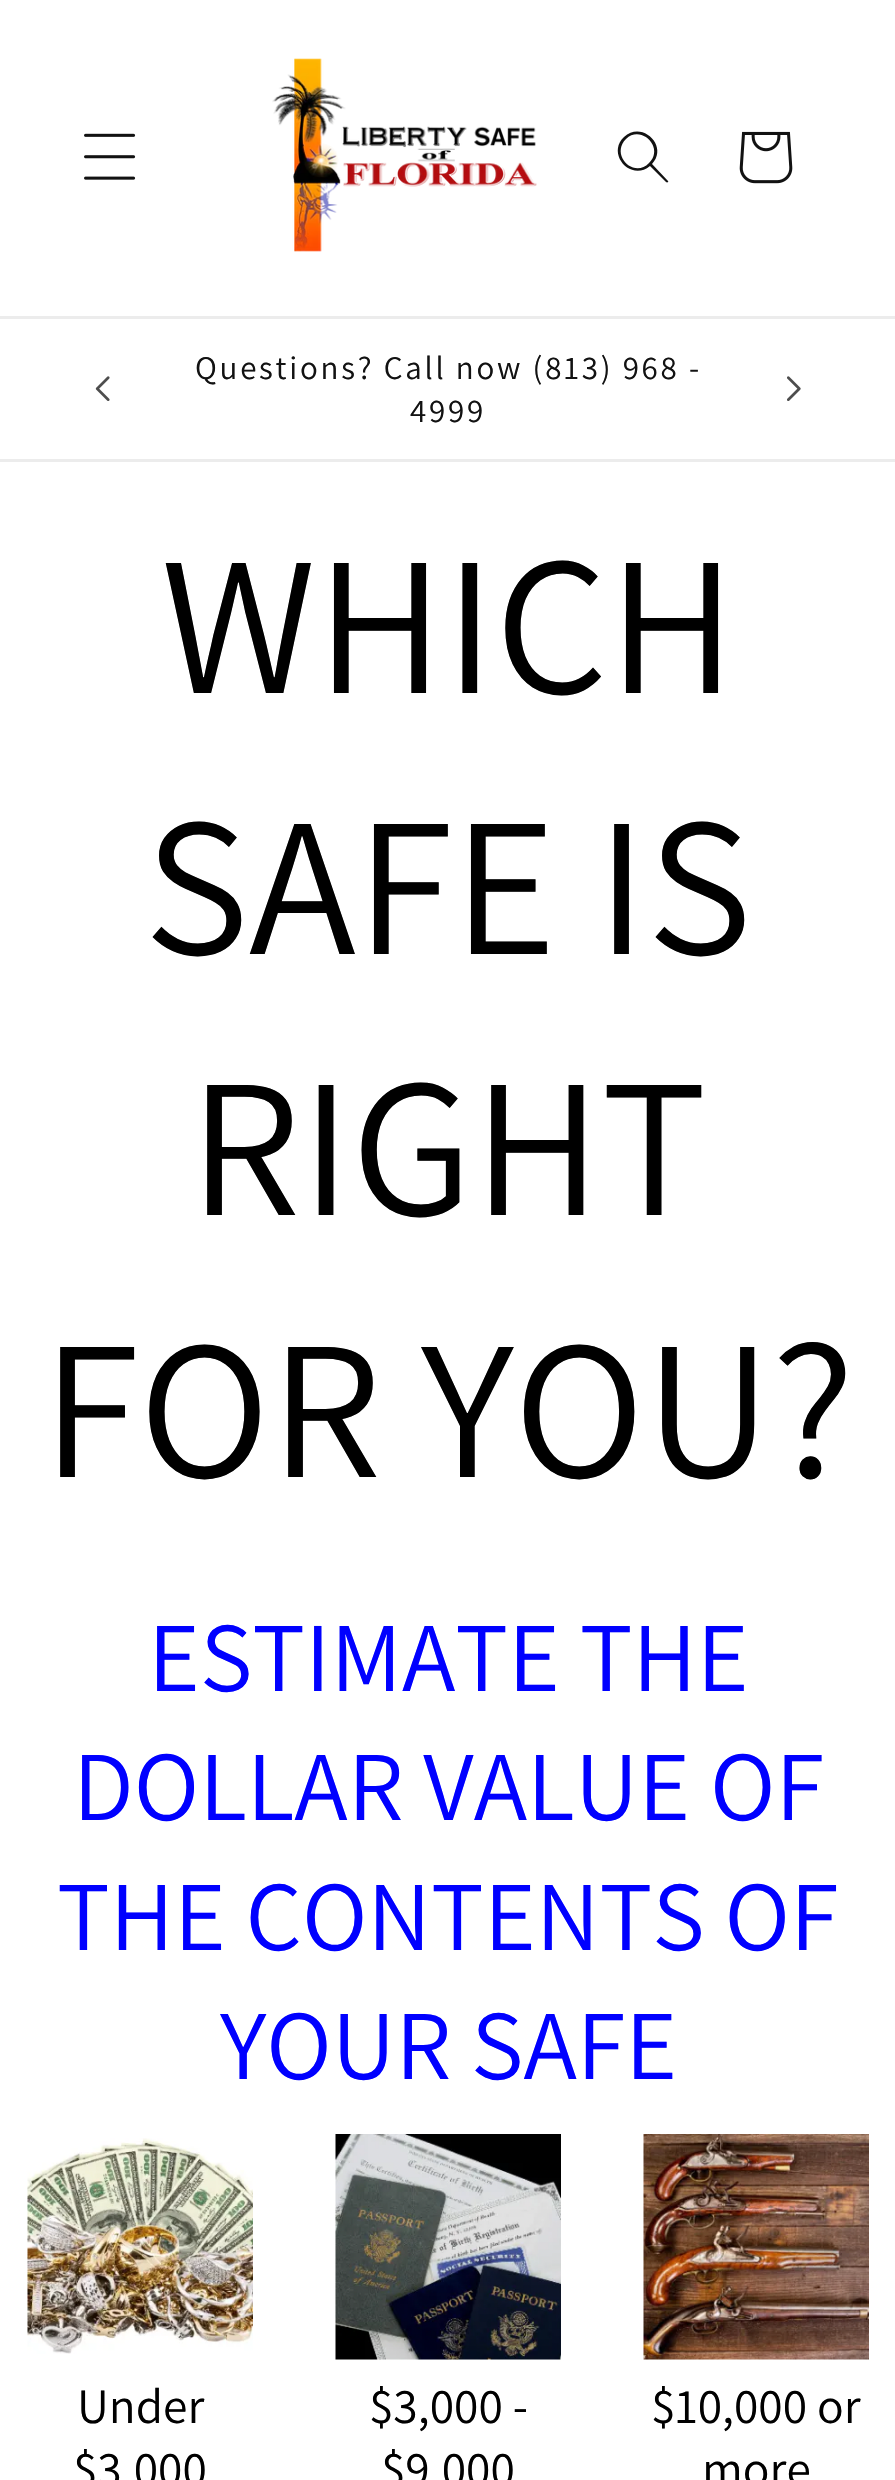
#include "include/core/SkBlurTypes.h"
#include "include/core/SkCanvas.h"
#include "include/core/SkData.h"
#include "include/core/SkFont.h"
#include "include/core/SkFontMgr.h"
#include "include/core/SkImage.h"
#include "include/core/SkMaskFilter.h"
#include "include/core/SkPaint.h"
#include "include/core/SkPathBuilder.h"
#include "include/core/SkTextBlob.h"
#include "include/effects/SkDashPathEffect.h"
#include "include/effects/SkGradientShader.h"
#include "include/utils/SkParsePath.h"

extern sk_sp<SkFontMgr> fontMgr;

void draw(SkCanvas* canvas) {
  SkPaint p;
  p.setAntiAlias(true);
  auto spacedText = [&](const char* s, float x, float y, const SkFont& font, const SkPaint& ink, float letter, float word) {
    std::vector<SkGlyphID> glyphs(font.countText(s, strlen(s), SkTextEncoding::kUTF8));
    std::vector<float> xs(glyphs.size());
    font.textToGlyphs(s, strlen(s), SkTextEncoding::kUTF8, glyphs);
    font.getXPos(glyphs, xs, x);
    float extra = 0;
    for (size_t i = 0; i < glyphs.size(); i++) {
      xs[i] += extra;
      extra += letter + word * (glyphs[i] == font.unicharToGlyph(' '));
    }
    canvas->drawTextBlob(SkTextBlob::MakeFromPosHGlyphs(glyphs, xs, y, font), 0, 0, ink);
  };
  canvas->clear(SK_ColorWHITE);
  p.setColor(SkColorSetRGB(236, 236, 236));
  canvas->drawRect(SkRect::MakeLTRB(0, 316, 895, 319), p);
  canvas->drawImageRect(SkImages::DeferredFromEncodedData(SkData::MakeFromFileName("images/1.png")), SkRect::MakeLTRB(84, 133, 136, 180), SkSamplingOptions());
  canvas->drawImageRect(SkImages::DeferredFromEncodedData(SkData::MakeFromFileName("images/2.png")), SkRect::MakeLTRB(272, 58, 537, 252), SkSamplingOptions());
  p.setColor(SkColorSetRGB(18, 18, 18));
  canvas->drawPath(SkPathBuilder(SkPathFillType::kEvenOdd).moveTo(649, 163).cubicTo(634, 179, 610, 155, 626, 139).cubicTo(641, 124, 665, 148, 649, 163).moveTo(650, 166).cubicTo(631, 182, 606, 154, 624, 137).cubicTo(642, 120, 669, 146, 652, 164).lineTo(668, 181).cubicTo(669, 182, 667, 183, 666, 182).close().detach(), p);
  canvas->drawImageRect(SkImages::DeferredFromEncodedData(SkData::MakeFromFileName("images/3.png")), SkRect::MakeLTRB(739, 131, 793, 184), SkSamplingOptions());
  p.setColor(SkColorSetRGB(236, 236, 236));
  canvas->drawRect(SkRect::MakeLTRB(0, 459, 895, 462), p);
  canvas->drawImageRect(SkImages::DeferredFromEncodedData(SkData::MakeFromFileName("images/4.png")), SkRect::MakeLTRB(95, 376, 110, 401), SkSamplingOptions());
  canvas->drawImageRect(SkImages::DeferredFromEncodedData(SkData::MakeFromFileName("images/5.png")), SkRect::MakeLTRB(787, 376, 801, 401), SkSamplingOptions());
  canvas->drawImageRect(SkImages::DeferredFromEncodedData(SkData::MakeFromFileName("images/6.png")), SkRect::MakeLTRB(27, 2138, 253, 2354), SkSamplingOptions());
  canvas->drawImageRect(SkImages::DeferredFromEncodedData(SkData::MakeFromFileName("images/7.png")), SkRect::MakeLTRB(335, 2134, 561, 2360), SkSamplingOptions());
  canvas->drawImageRect(SkImages::DeferredFromEncodedData(SkData::MakeFromFileName("images/8.png")), SkRect::MakeLTRB(643, 2134, 869, 2360), SkSamplingOptions());
  SkFont font1(fontMgr->matchFamilyStyle("Assistant", SkFontStyle::Normal()), 33);
  font1.setSubpixel(true);
  p.setColor(SkColorSetRGB(18, 18, 18));
  spacedText("Questions? Call now (813) 968 -", 195, 379, font1, p, 2.75f, 0);
  spacedText("4999", 410, 422, font1, p, 2.75f, 0);
  SkFont font2(fontMgr->matchFamilyStyle("Assistant", SkFontStyle::Normal()), 198);
  font2.setSubpixel(true);
  p.setColor(SK_ColorBLACK);
  canvas->drawString("WHICH", 161, 693, font2, p);
  canvas->drawString("SAFE IS", 144, 954, font2, p);
  canvas->drawString("RIGHT", 189, 1215, font2, p);
  canvas->drawString("FOR YOU?", 42, 1477, font2, p);
  SkFont font3(fontMgr->matchFamilyStyle("Assistant", SkFontStyle::Normal()), 99);
  font3.setSubpixel(true);
  p.setColor(SkColorSetRGB(0, 0, 255));
  canvas->drawString("ESTIMATE THE", 148, 1691, font3, p);
  canvas->drawString("DOLLAR VALUE OF", 73, 1820, font3, p);
  canvas->drawString("THE CONTENTS OF", 57, 1950, font3, p);
  canvas->drawString("YOUR SAFE", 220, 2079, font3, p);
  SkFont font4(fontMgr->matchFamilyStyle("Assistant", SkFontStyle::Normal()), 49.5f);
  font4.setSubpixel(true);
  p.setColor(SK_ColorBLACK);
  canvas->drawString("Under", 77, 2423, font4, p);
  canvas->drawString("$3,000", 73, 2486, font4, p);
  canvas->drawString("$3,000 -", 369, 2423, font4, p);
  canvas->drawString("$9,000", 381, 2486, font4, p);
  canvas->drawString("$10,000 or", 651, 2423, font4, p);
  canvas->drawString("more", 702, 2486, font4, p);
}
